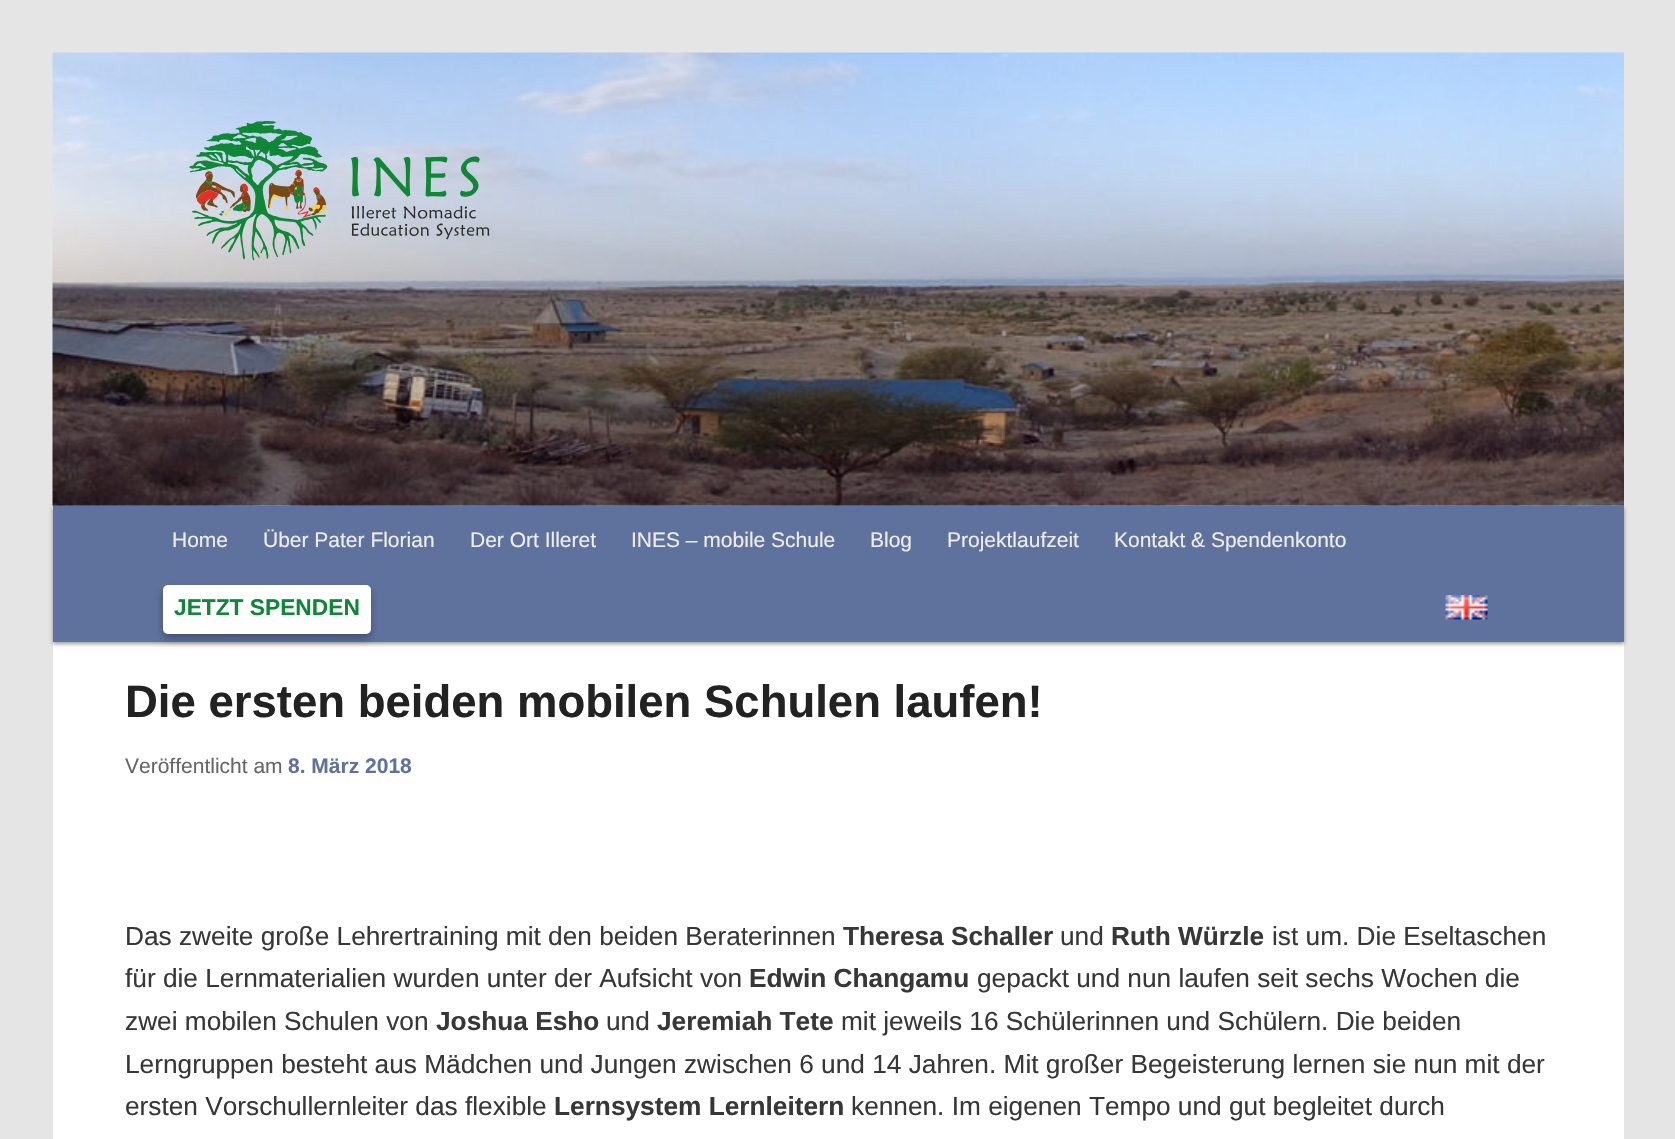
#include "include/core/SkBlurTypes.h"
#include "include/core/SkCanvas.h"
#include "include/core/SkData.h"
#include "include/core/SkFont.h"
#include "include/core/SkFontMgr.h"
#include "include/core/SkImage.h"
#include "include/core/SkMaskFilter.h"
#include "include/core/SkPaint.h"
#include "include/core/SkPathBuilder.h"
#include "include/core/SkTextBlob.h"
#include "include/effects/SkDashPathEffect.h"
#include "include/effects/SkGradientShader.h"
#include "include/utils/SkParsePath.h"

extern sk_sp<SkFontMgr> fontMgr;

void draw(SkCanvas* canvas) {
  SkPaint p;
  p.setAntiAlias(true);
  canvas->clear(SkColorSetRGB(229, 229, 229));
  p.setColor(SK_ColorWHITE);
  canvas->drawRect(SkRect::MakeLTRB(53, 505, 1624, 1139), p);
  p.setColor(SkColorSetARGB(102, 0, 0, 0));
  p.setMaskFilter(SkMaskFilter::MakeBlur(kNormal_SkBlurStyle, 2));
  canvas->drawRect(SkRect::MakeLTRB(53, 508, 1624, 644), p);
  p.setMaskFilter(nullptr);
  canvas->drawImageRect(SkImages::DeferredFromEncodedData(SkData::MakeFromFileName("images/1.png")), SkRect::MakeLTRB(52, 52, 1624, 506), SkSamplingOptions());
  canvas->drawImageRect(SkImages::DeferredFromEncodedData(SkData::MakeFromFileName("images/2.png")), SkRect::MakeLTRB(189, 121, 490, 261), SkSamplingOptions());
  p.setColor(SkColorSetRGB(95, 114, 158));
  canvas->drawRect(SkRect::MakeLTRB(53, 506, 1624, 642), p);
  p.setColor(SkColorSetARGB(77, 0, 0, 0));
  p.setMaskFilter(SkMaskFilter::MakeBlur(kNormal_SkBlurStyle, 4.5f));
  canvas->drawRoundRect(SkRect::MakeLTRB(163, 590, 371, 639), 5, 5, p);
  p.setMaskFilter(nullptr);
  p.setColor(SK_ColorWHITE);
  canvas->drawRoundRect(SkRect::MakeLTRB(163, 585, 371, 634), 5, 5, p);
  canvas->drawImageRect(SkImages::DeferredFromEncodedData(SkData::MakeFromFileName("images/3.png")), SkRect::MakeLTRB(1445, 595, 1488, 620), SkSamplingOptions());
  SkFont font1(fontMgr->matchFamilyStyle("Liberation Sans", SkFontStyle::Normal()), 21);
  font1.setSubpixel(true);
  p.setColor(SkColorSetRGB(238, 238, 238));
  canvas->drawString("Home", 172, 547, font1, p);
  canvas->drawString("Über Pater Florian", 263, 547, font1, p);
  canvas->drawString("Der Ort Illeret", 470, 547, font1, p);
  canvas->drawString("INES – mobile Schule", 631, 547, font1, p);
  canvas->drawString("Blog", 870, 547, font1, p);
  canvas->drawString("Projektlaufzeit", 947, 547, font1, p);
  canvas->drawString("Kontakt & Spendenkonto", 1114, 547, font1, p);
  SkFont font2(fontMgr->matchFamilyStyle("Liberation Sans", SkFontStyle::Bold()), 22.75f);
  font2.setSubpixel(true);
  p.setColor(SkColorSetRGB(14, 135, 55));
  canvas->drawString("JETZT SPENDEN", 174, 615, font2, p);
  SkFont font3(fontMgr->matchFamilyStyle("Liberation Sans", SkFontStyle::Bold()), 45.5f);
  font3.setSubpixel(true);
  p.setColor(SkColorSetRGB(34, 34, 34));
  canvas->drawString("Die ersten beiden mobilen Schulen laufen!", 125, 717, font3, p);
  p.setColor(SkColorSetRGB(102, 102, 102));
  canvas->drawString("Veröffentlicht am", 125, 773, font1, p);
  SkFont font4(fontMgr->matchFamilyStyle("Liberation Sans", SkFontStyle::Bold()), 21);
  font4.setSubpixel(true);
  p.setColor(SkColorSetRGB(95, 114, 158));
  canvas->drawString("8. März 2018", 288, 773, font4, p);
  SkFont font5(fontMgr->matchFamilyStyle("Liberation Sans", SkFontStyle::Normal()), 26.25f);
  font5.setSubpixel(true);
  p.setColor(SkColorSetRGB(55, 55, 55));
  canvas->drawString("Das zweite große Lehrertraining mit den beiden Beraterinnen", 125, 945, font5, p);
  SkFont font6(fontMgr->matchFamilyStyle("Liberation Sans", SkFontStyle::Bold()), 26.25f);
  font6.setSubpixel(true);
  canvas->drawString("Theresa Schaller", 843, 945, font6, p);
  canvas->drawString("und", 1060, 945, font5, p);
  canvas->drawString("Ruth Würzle", 1111, 945, font6, p);
  canvas->drawString("ist um. Die Eseltaschen", 1272, 945, font5, p);
  canvas->drawString("für die Lernmaterialien wurden unter der Aufsicht von", 125, 987, font5, p);
  canvas->drawString("Edwin Changamu", 749, 987, font6, p);
  canvas->drawString("gepackt und nun laufen seit sechs Wochen die", 977, 987, font5, p);
  canvas->drawString("zwei mobilen Schulen von", 125, 1030, font5, p);
  canvas->drawString("Joshua Esho", 436, 1030, font6, p);
  canvas->drawString("und", 606, 1030, font5, p);
  canvas->drawString("Jeremiah Tete", 657, 1030, font6, p);
  canvas->drawString("mit jeweils 16 Schülerinnen und Schülern. Die beiden", 841, 1030, font5, p);
  canvas->drawString("Lerngruppen besteht aus Mädchen und Jungen zwischen 6 und 14 Jahren. Mit großer Begeisterung lernen sie nun mit der", 125, 1073, font5, p);
  canvas->drawString("ersten Vorschullernleiter das flexible", 125, 1115, font5, p);
  canvas->drawString("Lernsystem Lernleitern", 554, 1115, font6, p);
  canvas->drawString("kennen. Im eigenen Tempo und gut begleitet durch", 851, 1115, font5, p);
}
